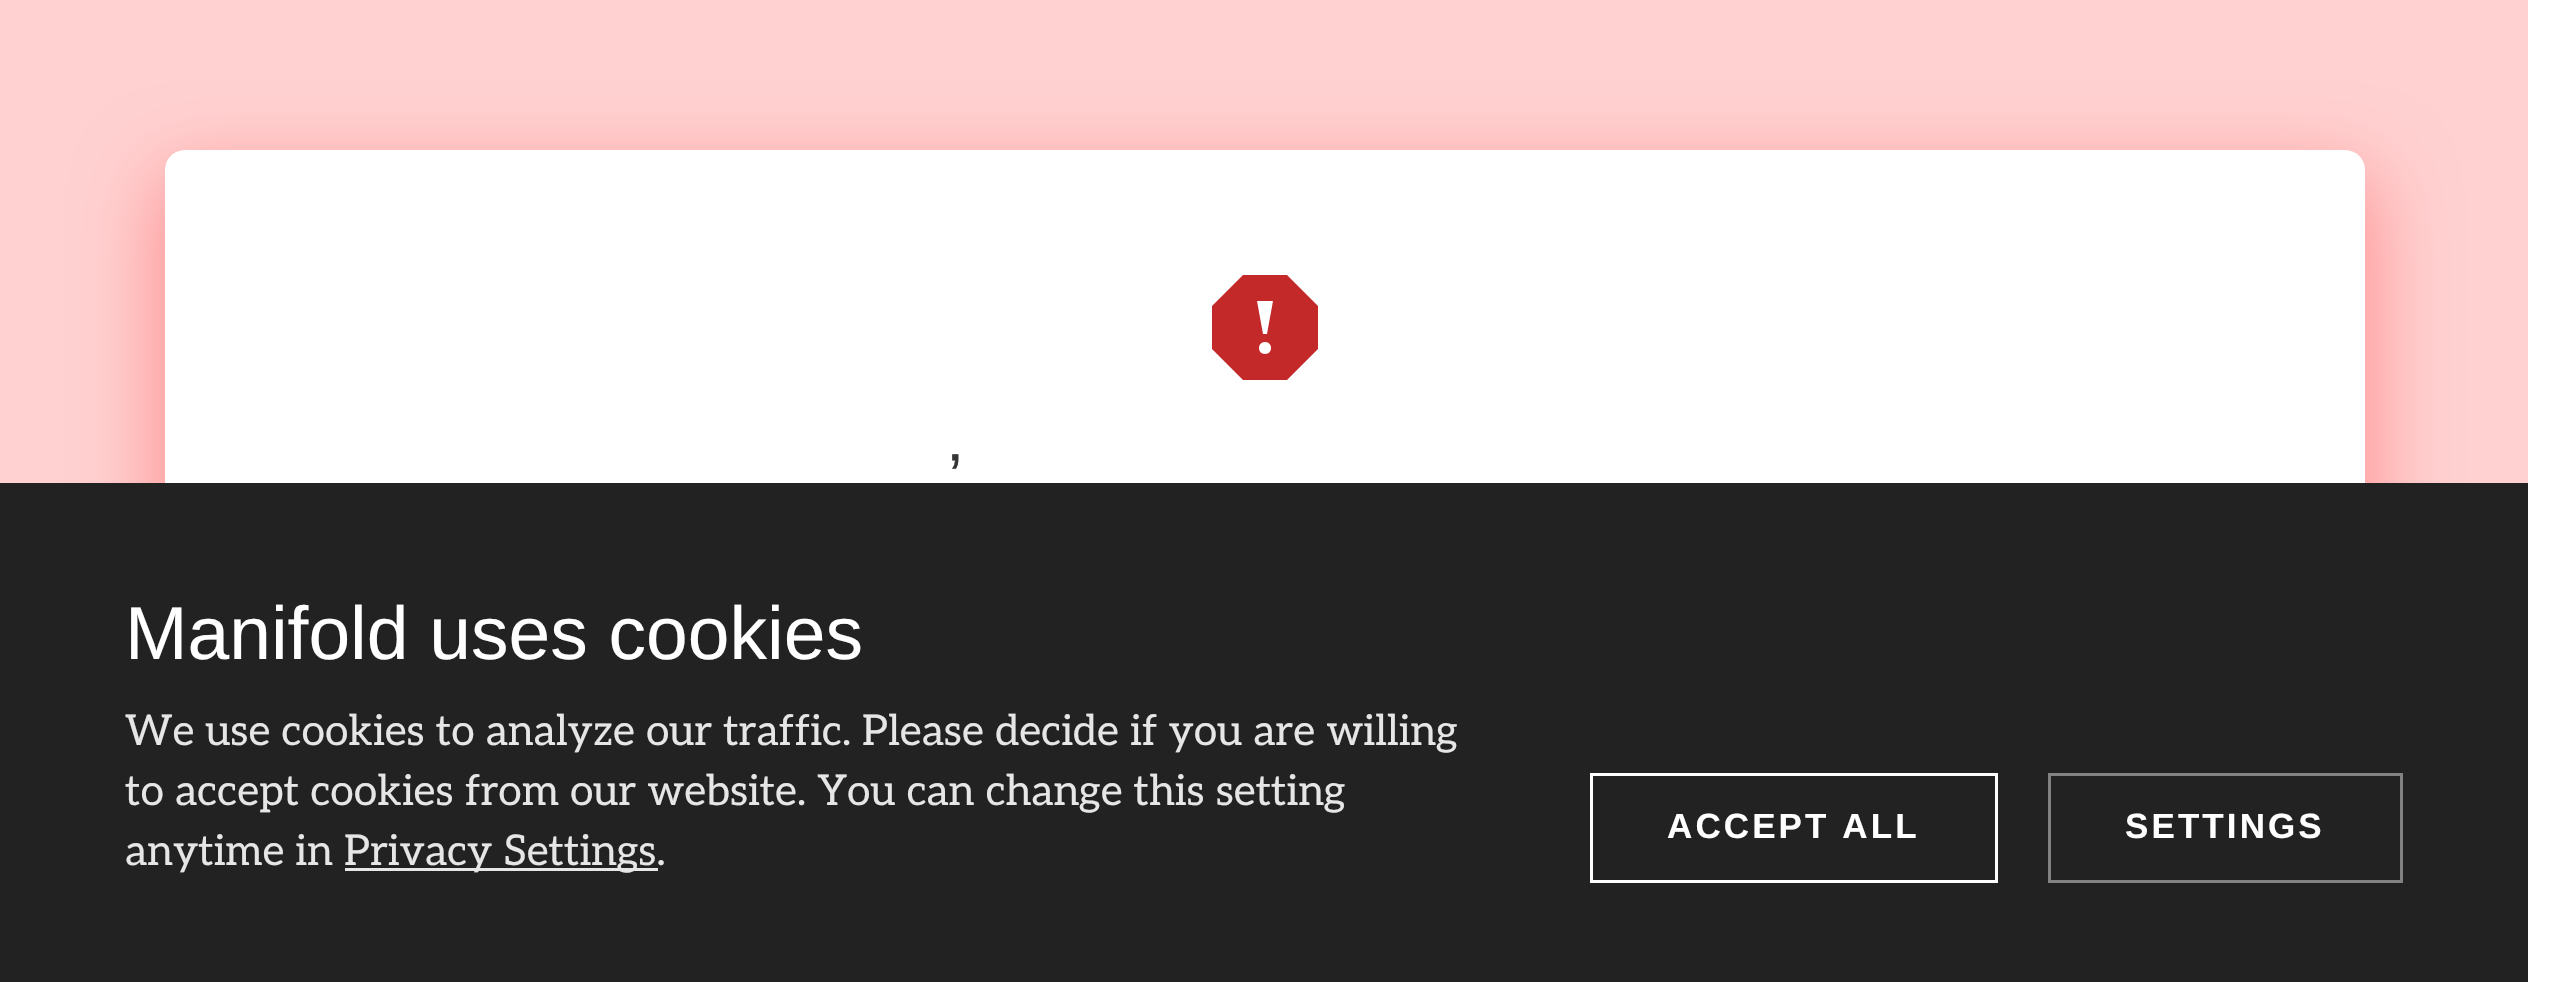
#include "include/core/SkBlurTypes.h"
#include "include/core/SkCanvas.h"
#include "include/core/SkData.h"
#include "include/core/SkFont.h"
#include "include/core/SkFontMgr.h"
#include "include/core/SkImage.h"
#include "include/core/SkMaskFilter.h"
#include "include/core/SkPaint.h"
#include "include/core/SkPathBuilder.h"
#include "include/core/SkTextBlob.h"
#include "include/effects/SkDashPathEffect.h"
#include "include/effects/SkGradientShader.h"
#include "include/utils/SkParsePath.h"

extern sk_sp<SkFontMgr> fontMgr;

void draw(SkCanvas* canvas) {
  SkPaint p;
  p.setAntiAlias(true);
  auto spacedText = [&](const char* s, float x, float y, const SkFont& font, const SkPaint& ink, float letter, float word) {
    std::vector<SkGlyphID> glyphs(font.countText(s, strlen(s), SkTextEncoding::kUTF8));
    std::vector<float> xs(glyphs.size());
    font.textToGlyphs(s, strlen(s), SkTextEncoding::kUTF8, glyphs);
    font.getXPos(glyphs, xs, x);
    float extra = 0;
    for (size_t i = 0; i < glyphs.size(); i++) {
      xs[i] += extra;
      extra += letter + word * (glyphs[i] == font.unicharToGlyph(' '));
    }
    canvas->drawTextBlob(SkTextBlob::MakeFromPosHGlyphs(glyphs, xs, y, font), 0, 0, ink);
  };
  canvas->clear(SK_ColorWHITE);
  p.setColor(SkColorSetRGB(255, 209, 209));
  canvas->drawRect(SkRect::MakeLTRB(0, 0, 2528, 483), p);
  p.setColor(SkColorSetRGB(255, 145, 145));
  p.setMaskFilter(SkMaskFilter::MakeBlur(kNormal_SkBlurStyle, 40));
  canvas->drawRoundRect(SkRect::MakeLTRB(158, 173, 2373, 905), 28, 28, p);
  p.setMaskFilter(nullptr);
  p.setColor(SK_ColorWHITE);
  canvas->drawRoundRect(SkRect::MakeLTRB(165, 150, 2365, 868), 20, 20, p);
  p.setColor(SkColorSetRGB(196, 41, 41));
  canvas->drawPath(SkPathBuilder().moveTo(1287, 275).lineTo(1243, 275).lineTo(1212, 306).lineTo(1212, 349).lineTo(1243, 380).lineTo(1287, 380).lineTo(1318, 349).lineTo(1318, 306).close().moveTo(1265, 354).cubicTo(1257, 354, 1257, 342, 1265, 342).cubicTo(1273, 342, 1273, 354, 1265, 354).close().moveTo(1267, 334).lineTo(1263, 334).lineTo(1257, 301).lineTo(1273, 301).close().detach(), p);
  p.setColor(SkColorSetRGB(34, 34, 34));
  canvas->drawRect(SkRect::MakeLTRB(0, 483, 2528, 982), p);
  p.setColor(SkColorSetRGB(230, 230, 230));
  canvas->drawRect(SkRect::MakeLTRB(345, 868, 658, 871), p);
  p.setStyle(SkPaint::kStroke_Style);
  p.setStrokeWidth(3);
  p.setColor(SK_ColorWHITE);
  canvas->drawRect(SkRect::MakeLTRB(1591.5f, 774.5f, 1996.5f, 881.5f), p);
  p.setColor(SkColorSetRGB(130, 130, 130));
  canvas->drawRect(SkRect::MakeLTRB(2049.5f, 774.5f, 2401.5f, 881.5f), p);
  SkFont font1(fontMgr->matchFamilyStyle("Liberation Sans", SkFontStyle::Normal()), 65);
  font1.setSubpixel(true);
  p.setStyle(SkPaint::kFill_Style);
  p.setColor(SkColorSetRGB(54, 54, 54));
  canvas->drawString("’", 948, 499, font1, p);
  SkFont font2(fontMgr->matchFamilyStyle("Liberation Sans", SkFontStyle::Normal()), 75);
  font2.setSubpixel(true);
  p.setColor(SK_ColorWHITE);
  canvas->drawString("Manifold uses cookies", 125, 659, font2, p);
  SkFont font3(fontMgr->matchFamilyStyle("Aleo", SkFontStyle::Normal()), 42.5f);
  font3.setSubpixel(true);
  p.setColor(SkColorSetRGB(230, 230, 230));
  canvas->drawString("We use cookies to analyze our traffic. Please decide if you are willing", 125, 745, font3, p);
  canvas->drawString("to accept cookies from our website. You can change this setting", 125, 805, font3, p);
  canvas->drawString("anytime in", 125, 865, font3, p);
  canvas->drawString("Privacy Settings.", 344, 865, font3, p);
  SkFont font4(fontMgr->matchFamilyStyle("Liberation Sans", SkFontStyle::Bold()), 35);
  font4.setSubpixel(true);
  p.setColor(SK_ColorWHITE);
  spacedText("ACCEPT ALL", 1667, 838, font4, p, 3.1f, 0);
  spacedText("SETTINGS", 2125, 838, font4, p, 3.1f, 0);
}
